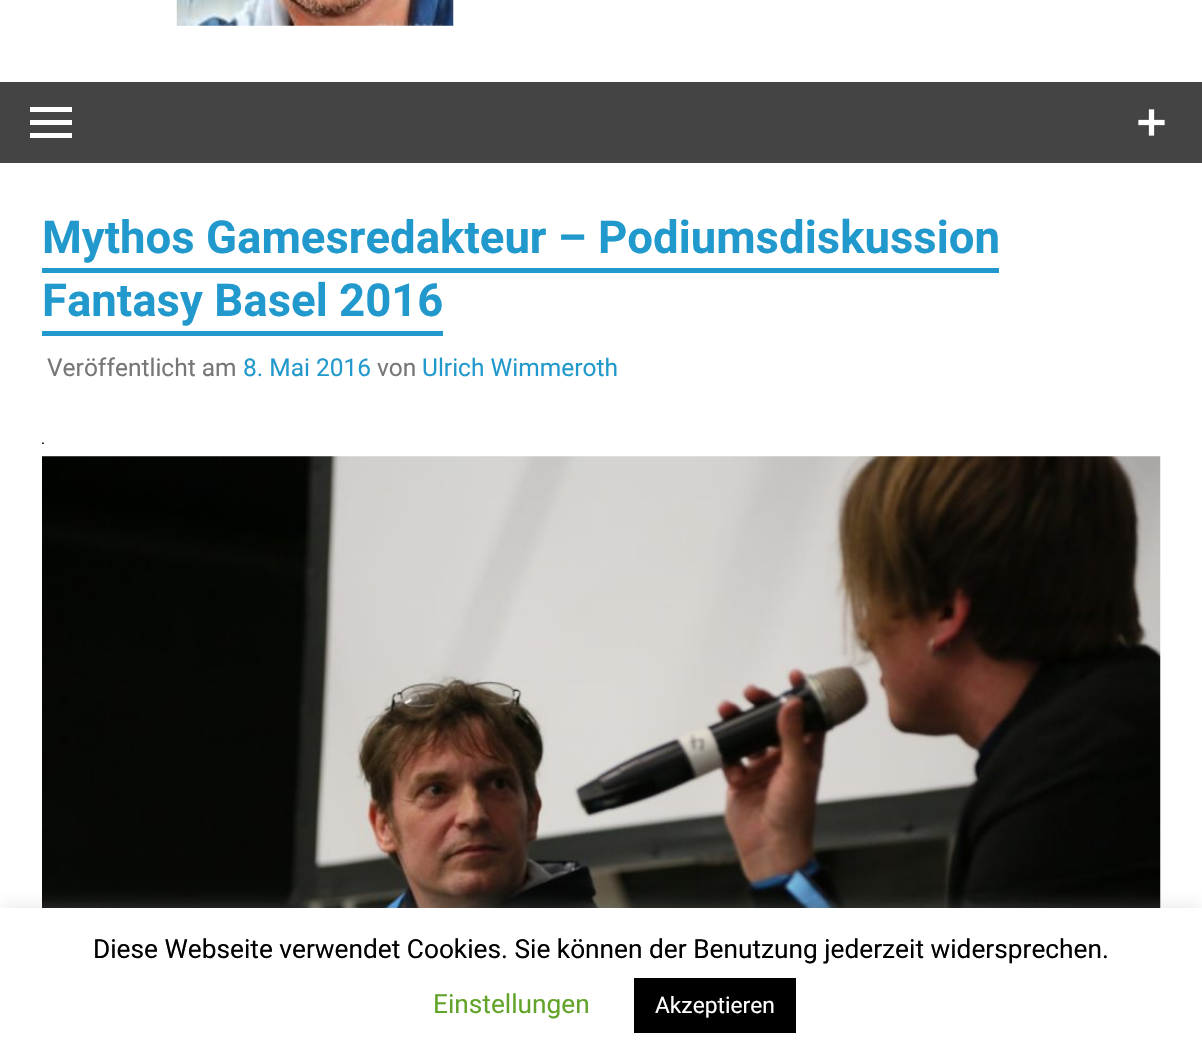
#include "include/core/SkBlurTypes.h"
#include "include/core/SkCanvas.h"
#include "include/core/SkData.h"
#include "include/core/SkFont.h"
#include "include/core/SkFontMgr.h"
#include "include/core/SkImage.h"
#include "include/core/SkMaskFilter.h"
#include "include/core/SkPaint.h"
#include "include/core/SkPathBuilder.h"
#include "include/core/SkTextBlob.h"
#include "include/effects/SkDashPathEffect.h"
#include "include/effects/SkGradientShader.h"
#include "include/utils/SkParsePath.h"

extern sk_sp<SkFontMgr> fontMgr;

void draw(SkCanvas* canvas) {
  SkPaint p;
  p.setAntiAlias(true);
  canvas->clear(SK_ColorWHITE);
  canvas->drawImageRect(SkImages::DeferredFromEncodedData(SkData::MakeFromFileName("images/1.png")), SkRect::MakeLTRB(176, 0, 454, 26), SkSamplingOptions());
  p.setColor(SkColorSetRGB(68, 68, 68));
  canvas->drawRect(SkRect::MakeLTRB(0, 82, 1202, 163), p);
  canvas->drawImageRect(SkImages::DeferredFromEncodedData(SkData::MakeFromFileName("images/2.png")), SkRect::MakeLTRB(1138, 109, 1165, 136), SkSamplingOptions());
  p.setColor(SK_ColorWHITE);
  canvas->drawPath(SkPathBuilder().moveTo(30, 138).lineTo(30, 133).lineTo(72, 133).lineTo(72, 138).close().moveTo(30, 107).lineTo(72, 107).lineTo(72, 112).lineTo(30, 112).close().moveTo(30, 125).lineTo(30, 120).lineTo(72, 120).lineTo(72, 125).close().detach(), p);
  p.setColor(SkColorSetRGB(34, 153, 204));
  canvas->drawRect(SkRect::MakeLTRB(42, 268, 999, 273), p);
  canvas->drawRect(SkRect::MakeLTRB(42, 331, 443, 336), p);
  canvas->drawImageRect(SkImages::DeferredFromEncodedData(SkData::MakeFromFileName("images/3.png")), SkRect::MakeLTRB(42, 442, 44, 444), SkSamplingOptions());
  canvas->drawImageRect(SkImages::DeferredFromEncodedData(SkData::MakeFromFileName("images/4.png")), SkRect::MakeLTRB(42, 456, 1161, 908), SkSamplingOptions());
  p.setColor(SkColorSetARGB(77, 172, 171, 171));
  p.setMaskFilter(SkMaskFilter::MakeBlur(kNormal_SkBlurStyle, 9));
  canvas->drawRect(SkRect::MakeLTRB(0, 907, 1202, 1061), p);
  p.setMaskFilter(nullptr);
  p.setColor(SK_ColorWHITE);
  canvas->drawRect(SkRect::MakeLTRB(0, 908, 1202, 1061), p);
  p.setColor(SK_ColorBLACK);
  canvas->drawRect(SkRect::MakeLTRB(634, 978, 796, 1033), p);
  SkFont font1(fontMgr->matchFamilyStyle("Roboto", SkFontStyle::Bold()), 45.5f);
  font1.setSubpixel(true);
  p.setColor(SkColorSetRGB(34, 153, 204));
  canvas->drawString("Mythos Gamesredakteur – Podiumsdiskussion", 42, 253, font1, p);
  canvas->drawString("Fantasy Basel 2016", 42, 316, font1, p);
  SkFont font2(fontMgr->matchFamilyStyle("Roboto", SkFontStyle::Normal()), 24.5f);
  font2.setSubpixel(true);
  p.setColor(SkColorSetRGB(119, 119, 119));
  canvas->drawString("Veröffentlicht am", 47, 376, font2, p);
  p.setColor(SkColorSetRGB(34, 153, 204));
  canvas->drawString("8. Mai 2016", 243, 376, font2, p);
  p.setColor(SkColorSetRGB(119, 119, 119));
  canvas->drawString("von", 377, 376, font2, p);
  p.setColor(SkColorSetRGB(34, 153, 204));
  canvas->drawString("Ulrich Wimmeroth", 422, 376, font2, p);
  SkFont font3(fontMgr->matchFamilyStyle("Roboto", SkFontStyle::Normal()), 26.25f);
  font3.setSubpixel(true);
  p.setColor(SK_ColorBLACK);
  canvas->drawString("Diese Webseite verwendet Cookies. Sie können der Benutzung jederzeit widersprechen.", 93, 958, font3, p);
  p.setColor(SkColorSetRGB(98, 163, 41));
  canvas->drawString("Einstellungen", 433, 1013, font3, p);
  SkFont font4(fontMgr->matchFamilyStyle("Roboto", SkFontStyle::Normal()), 22.75f);
  font4.setSubpixel(true);
  p.setColor(SK_ColorWHITE);
  canvas->drawString("Akzeptieren", 655, 1013, font4, p);
}
